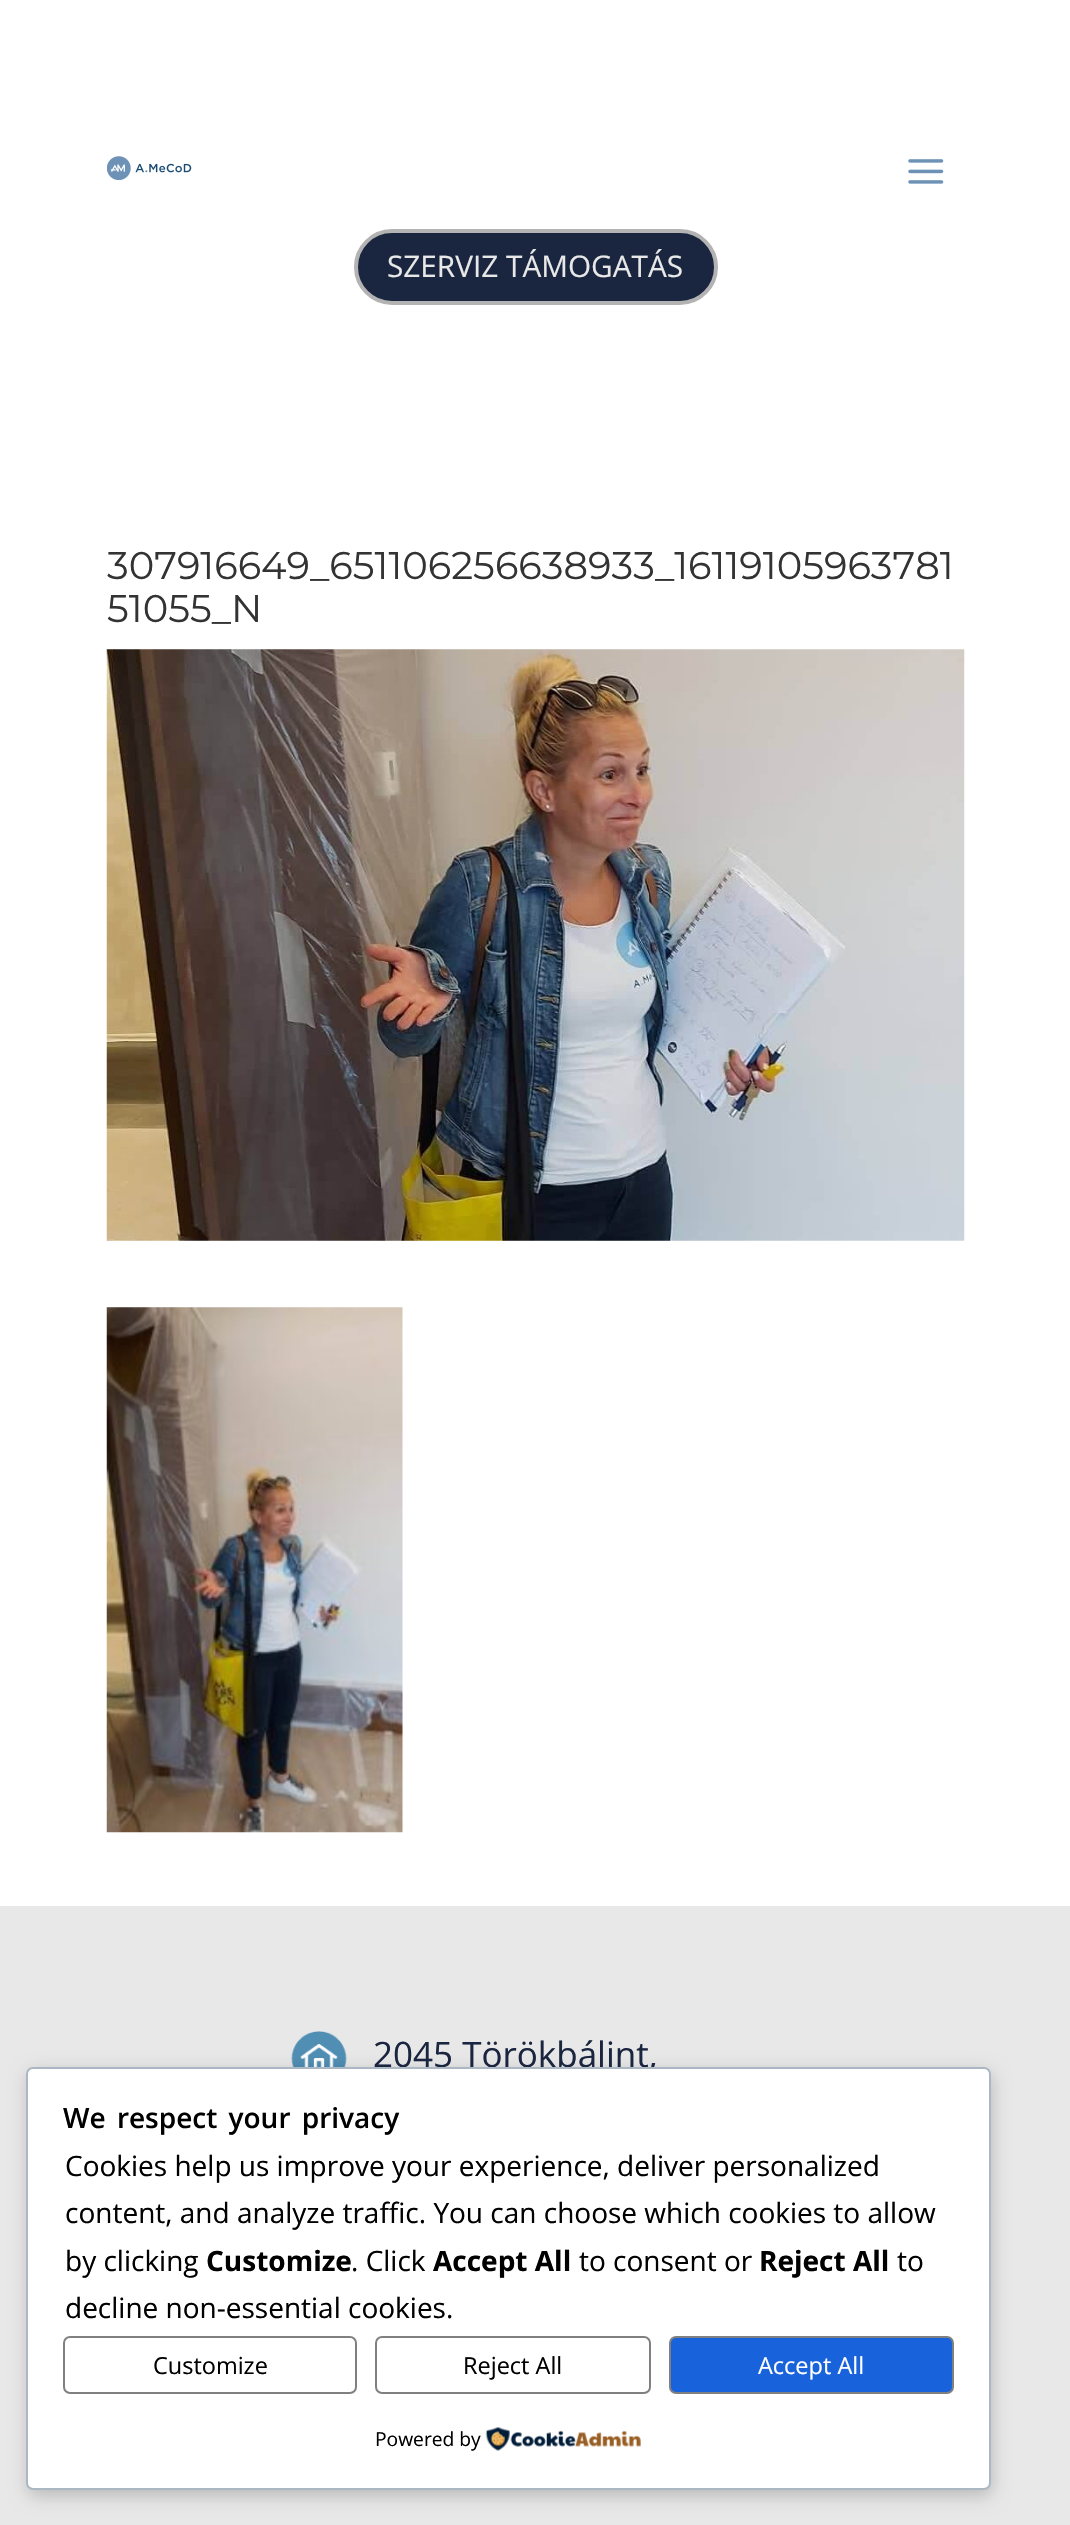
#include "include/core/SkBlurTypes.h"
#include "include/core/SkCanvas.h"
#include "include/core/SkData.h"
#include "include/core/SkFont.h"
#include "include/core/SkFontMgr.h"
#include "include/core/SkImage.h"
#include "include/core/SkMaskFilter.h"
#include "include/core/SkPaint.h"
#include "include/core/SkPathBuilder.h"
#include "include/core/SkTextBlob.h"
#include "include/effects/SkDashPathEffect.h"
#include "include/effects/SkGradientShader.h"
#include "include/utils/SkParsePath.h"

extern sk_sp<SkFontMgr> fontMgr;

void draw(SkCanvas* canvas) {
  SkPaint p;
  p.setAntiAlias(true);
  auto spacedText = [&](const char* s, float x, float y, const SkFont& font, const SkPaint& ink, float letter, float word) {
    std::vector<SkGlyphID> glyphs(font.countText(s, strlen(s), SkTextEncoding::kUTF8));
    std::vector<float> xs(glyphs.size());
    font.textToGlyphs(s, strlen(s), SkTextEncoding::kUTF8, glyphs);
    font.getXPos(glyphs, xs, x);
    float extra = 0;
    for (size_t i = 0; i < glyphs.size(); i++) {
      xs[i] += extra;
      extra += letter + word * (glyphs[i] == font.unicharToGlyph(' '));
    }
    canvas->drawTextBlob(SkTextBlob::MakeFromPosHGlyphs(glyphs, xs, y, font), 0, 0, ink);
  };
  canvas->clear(SK_ColorWHITE);
  canvas->drawImageRect(SkImages::DeferredFromEncodedData(SkData::MakeFromFileName("images/1.png")), SkRect::MakeLTRB(107, 156, 192, 180), SkSamplingOptions());
  canvas->drawImageRect(SkImages::DeferredFromEncodedData(SkData::MakeFromFileName("images/2.png")), SkRect::MakeLTRB(908, 159, 944, 184), SkSamplingOptions());
  p.setColor(SkColorSetRGB(26, 38, 63));
  canvas->drawRoundRect(SkRect::MakeLTRB(356, 231, 716, 303), 36, 36, p);
  p.setStyle(SkPaint::kStroke_Style);
  p.setStrokeWidth(4);
  p.setColor(SkColorSetRGB(179, 179, 179));
  canvas->drawRoundRect(SkRect::MakeLTRB(356, 231, 716, 303), 36, 36, p);
  canvas->drawImageRect(SkImages::DeferredFromEncodedData(SkData::MakeFromFileName("images/3.png")), SkRect::MakeLTRB(106, 649, 965, 1241), SkSamplingOptions());
  canvas->drawImageRect(SkImages::DeferredFromEncodedData(SkData::MakeFromFileName("images/4.png")), SkRect::MakeLTRB(106, 1307, 403, 1833), SkSamplingOptions());
  p.setStyle(SkPaint::kFill_Style);
  p.setColor(SkColorSetRGB(232, 232, 232));
  canvas->drawRect(SkRect::MakeLTRB(0, 1906, 1070, 2525), p);
  canvas->drawImageRect(SkImages::DeferredFromEncodedData(SkData::MakeFromFileName("images/5.png")), SkRect::MakeLTRB(291, 2031, 347, 2067), SkSamplingOptions());
  p.setColor(SkColorSetARGB(51, 0, 0, 0));
  p.setMaskFilter(SkMaskFilter::MakeBlur(kNormal_SkBlurStyle, 9));
  canvas->drawRoundRect(SkRect::MakeLTRB(28, 2072, 992, 2496), 7, 7, p);
  p.setMaskFilter(nullptr);
  SkFont font1(fontMgr->matchFamilyStyle("Open Sans", SkFontStyle::Normal()), 29.75f);
  font1.setSubpixel(true);
  p.setColor(SkColorSetRGB(232, 232, 232));
  canvas->drawString("SZERVIZ TÁMOGATÁS", 387, 277, font1, p);
  SkFont font2(fontMgr->matchFamilyStyle("Montserrat", SkFontStyle::Normal()), 38.5f);
  font2.setSubpixel(true);
  p.setColor(SkColorSetRGB(51, 51, 51));
  canvas->drawString("307916649_651106256638933_16119105963781", 107, 579, font2, p);
  canvas->drawString("51055_N", 107, 622, font2, p);
  SkFont font3(fontMgr->matchFamilyStyle("Open Sans", SkFontStyle::Normal()), 35);
  font3.setSubpixel(true);
  p.setColor(SkColorSetRGB(26, 38, 63));
  canvas->drawString("2045 Törökbálint,", 373, 2067, font3, p);
  p.setColor(SK_ColorWHITE);
  canvas->drawRoundRect(SkRect::MakeLTRB(27, 2068, 990, 2489), 6, 6, p);
  p.setStyle(SkPaint::kStroke_Style);
  p.setStrokeWidth(2);
  p.setColor(SkColorSetRGB(171, 184, 195));
  canvas->drawRoundRect(SkRect::MakeLTRB(27, 2068, 990, 2489), 6, 6, p);
  SkFont font4(fontMgr->matchFamilyStyle("Open Sans", SkFontStyle(600, SkFontStyle::kNormal_Width, SkFontStyle::kUpright_Slant)), 28);
  font4.setSubpixel(true);
  p.setStyle(SkPaint::kFill_Style);
  p.setColor(SK_ColorBLACK);
  spacedText("We respect your privacy", 63, 2128, font4, p, 0, 4);
  SkFont font5(fontMgr->matchFamilyStyle("Open Sans", SkFontStyle::Normal()), 28);
  font5.setSubpixel(true);
  canvas->drawString("Cookies help us improve your experience, deliver personalized", 65, 2176, font5, p);
  canvas->drawString("content, and analyze traffic. You can choose which cookies to allow", 65, 2223, font5, p);
  canvas->drawString("by clicking", 65, 2271, font5, p);
  SkFont font6(fontMgr->matchFamilyStyle("Open Sans", SkFontStyle::Bold()), 28);
  font6.setSubpixel(true);
  canvas->drawString("Customize", 206, 2271, font6, p);
  canvas->drawString(". Click", 351, 2271, font5, p);
  canvas->drawString("Accept All", 433, 2271, font6, p);
  canvas->drawString("to consent or", 579, 2271, font5, p);
  canvas->drawString("Reject All", 759, 2271, font6, p);
  canvas->drawString("to", 897, 2271, font5, p);
  canvas->drawString("decline non-essential cookies.", 65, 2318, font5, p);
  p.setStyle(SkPaint::kStroke_Style);
  p.setColor(SkColorSetRGB(128, 128, 128));
  canvas->drawRoundRect(SkRect::MakeLTRB(64, 2337, 356, 2393), 6, 6, p);
  SkFont font7(fontMgr->matchFamilyStyle("Open Sans", SkFontStyle::Normal()), 23.5f);
  font7.setSubpixel(true);
  p.setStyle(SkPaint::kFill_Style);
  p.setColor(SK_ColorBLACK);
  canvas->drawString("Customize", 153, 2374, font7, p);
  p.setStyle(SkPaint::kStroke_Style);
  p.setColor(SkColorSetRGB(128, 128, 128));
  canvas->drawRoundRect(SkRect::MakeLTRB(376, 2337, 650, 2393), 6, 6, p);
  p.setStyle(SkPaint::kFill_Style);
  p.setColor(SK_ColorBLACK);
  canvas->drawString("Reject All", 463, 2374, font7, p);
  p.setColor(SkColorSetRGB(24, 99, 220));
  canvas->drawRoundRect(SkRect::MakeLTRB(670, 2337, 953, 2393), 6, 6, p);
  p.setStyle(SkPaint::kStroke_Style);
  p.setColor(SkColorSetRGB(128, 128, 128));
  canvas->drawRoundRect(SkRect::MakeLTRB(670, 2337, 953, 2393), 6, 6, p);
  p.setStyle(SkPaint::kFill_Style);
  p.setColor(SK_ColorWHITE);
  canvas->drawString("Accept All", 758, 2374, font7, p);
  SkFont font8(fontMgr->matchFamilyStyle("Open Sans", SkFontStyle::Normal()), 19.25f);
  font8.setSubpixel(true);
  p.setColor(SK_ColorBLACK);
  canvas->drawString("Powered by", 375, 2446, font8, p);
  canvas->drawImageRect(SkImages::DeferredFromEncodedData(SkData::MakeFromFileName("images/6.png")), SkRect::MakeLTRB(485, 2427, 641, 2451), SkSamplingOptions());
}
